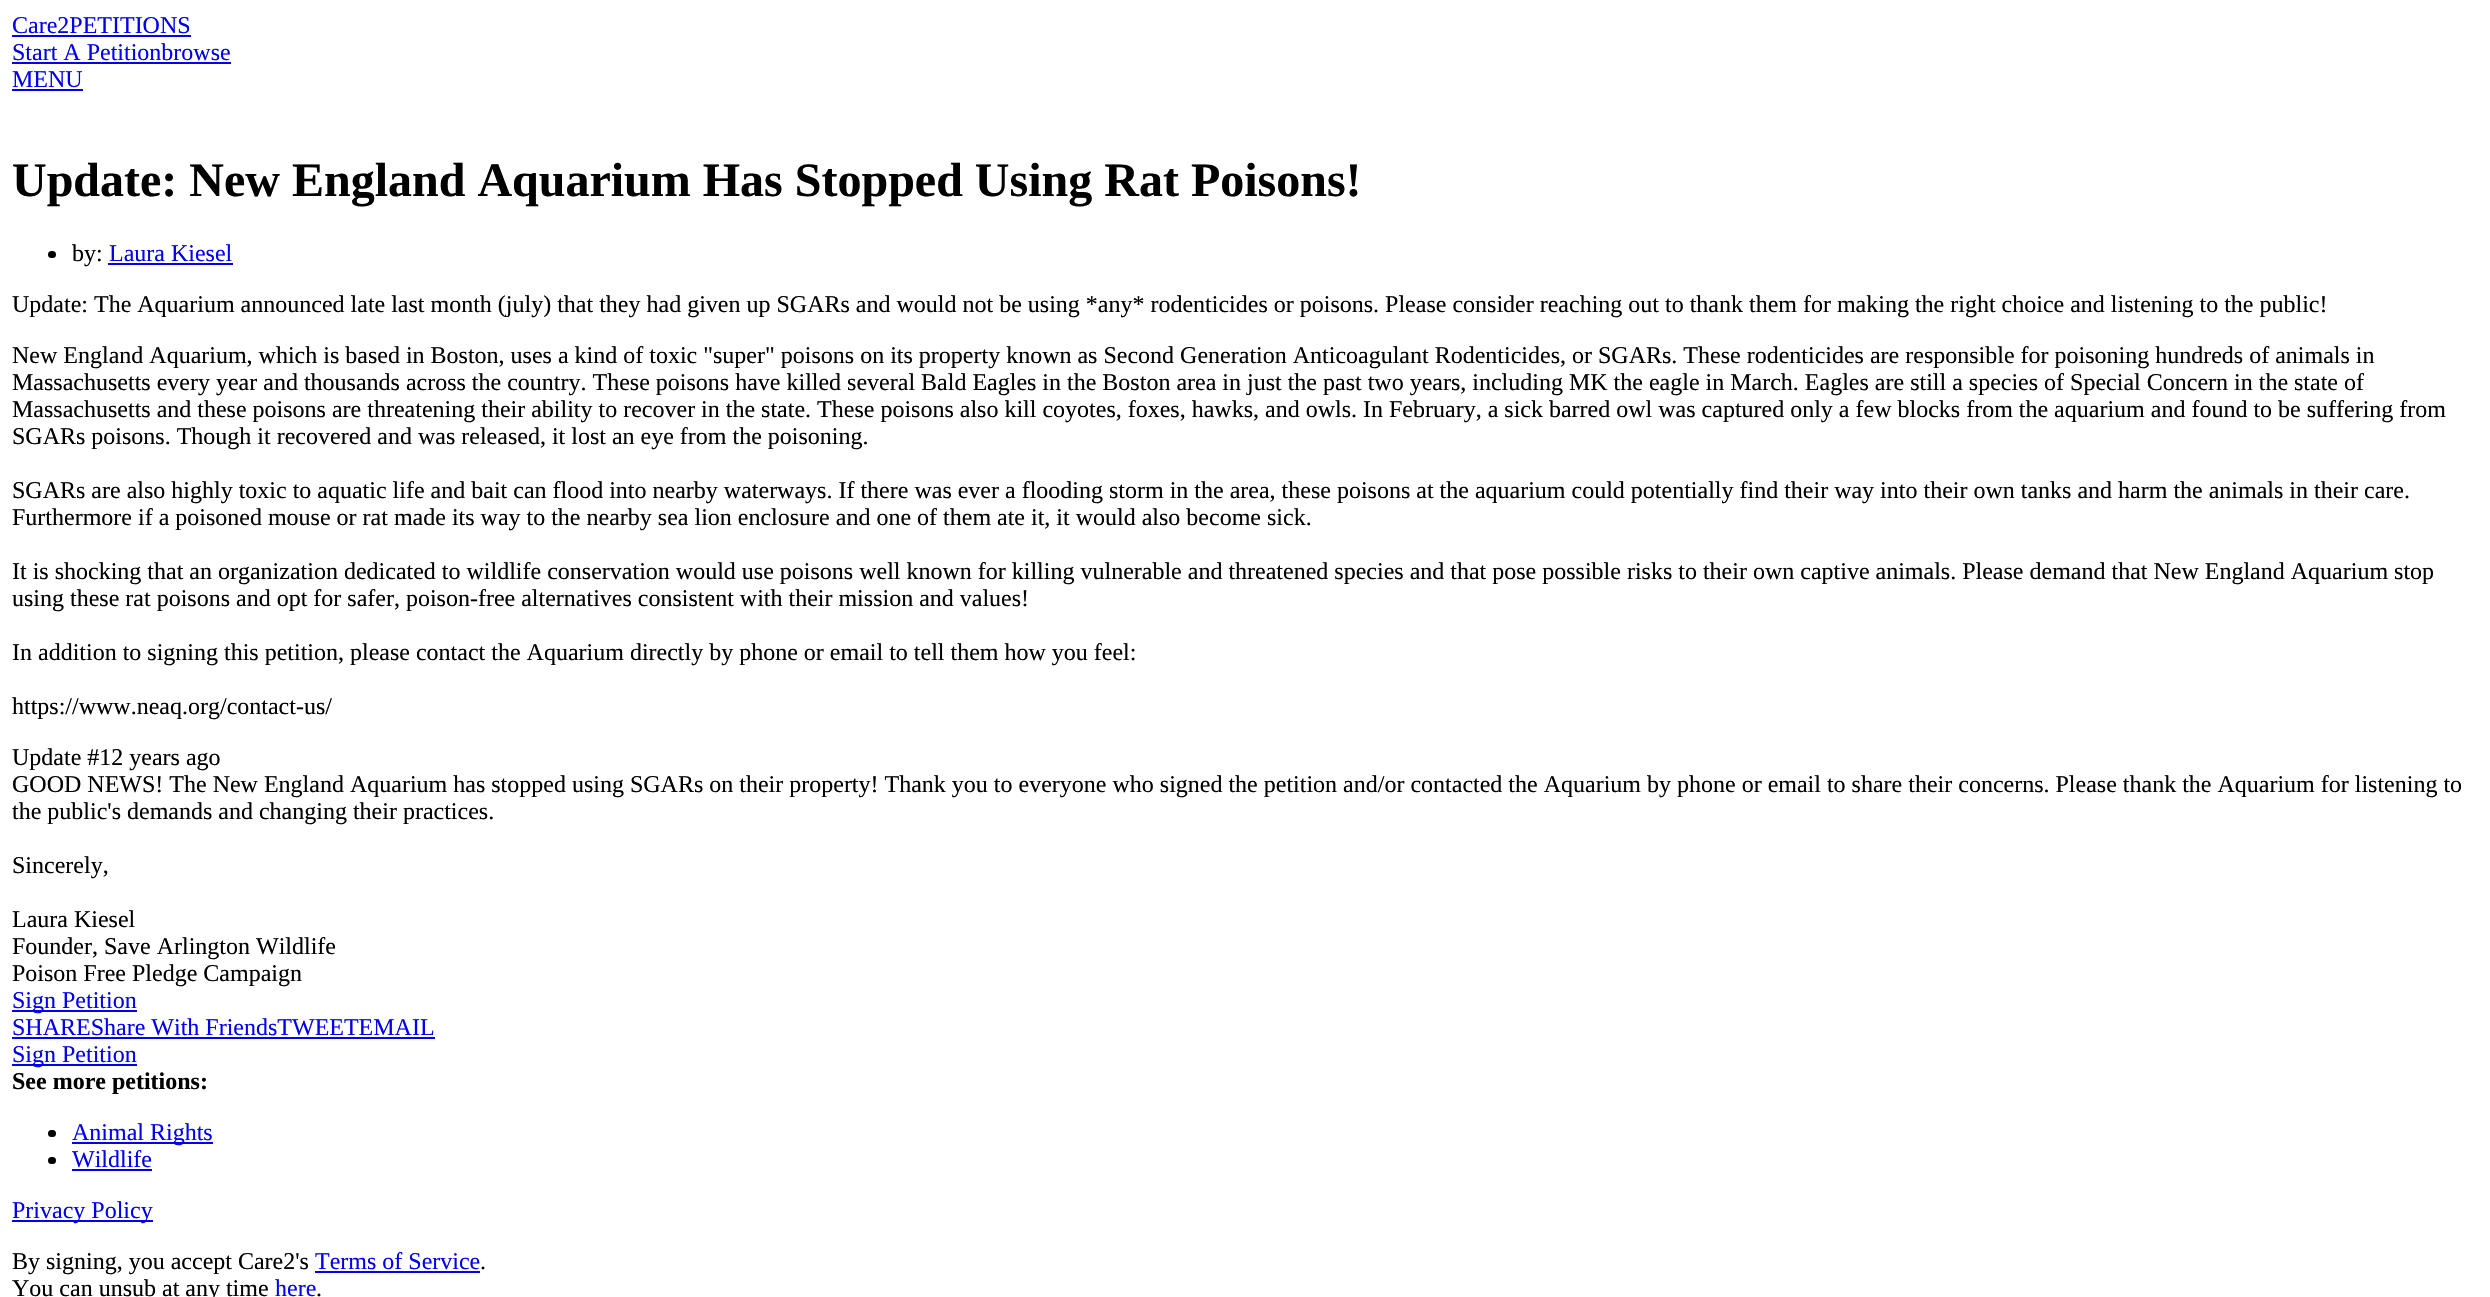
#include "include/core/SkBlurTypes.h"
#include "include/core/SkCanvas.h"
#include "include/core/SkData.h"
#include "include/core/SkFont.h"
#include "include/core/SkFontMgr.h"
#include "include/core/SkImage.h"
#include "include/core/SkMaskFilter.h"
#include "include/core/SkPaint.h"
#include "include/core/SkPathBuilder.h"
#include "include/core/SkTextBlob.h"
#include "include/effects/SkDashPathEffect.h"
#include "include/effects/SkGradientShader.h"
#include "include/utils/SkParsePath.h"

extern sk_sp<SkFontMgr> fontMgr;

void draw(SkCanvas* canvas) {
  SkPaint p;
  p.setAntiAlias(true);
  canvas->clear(SK_ColorWHITE);
  p.setColor(SkColorSetRGB(0, 0, 238));
  canvas->drawRect(SkRect::MakeLTRB(12, 35, 191, 37), p);
  canvas->drawRect(SkRect::MakeLTRB(12, 62, 231, 64), p);
  canvas->drawRect(SkRect::MakeLTRB(12, 89, 83, 91), p);
  p.setColor(SK_ColorBLACK);
  canvas->drawRoundRect(SkRect::MakeLTRB(48, 251, 56, 258), 3.5f, 3.5f, p);
  p.setColor(SkColorSetRGB(0, 0, 238));
  canvas->drawRect(SkRect::MakeLTRB(108, 263, 233, 265), p);
  canvas->drawRect(SkRect::MakeLTRB(12, 1010, 137, 1012), p);
  canvas->drawRect(SkRect::MakeLTRB(12, 1037, 435, 1039), p);
  canvas->drawRect(SkRect::MakeLTRB(12, 1064, 137, 1066), p);
  p.setColor(SK_ColorBLACK);
  canvas->drawRoundRect(SkRect::MakeLTRB(48, 1130, 56, 1137), 3.5f, 3.5f, p);
  p.setColor(SkColorSetRGB(0, 0, 238));
  canvas->drawRect(SkRect::MakeLTRB(72, 1142, 213, 1144), p);
  p.setColor(SK_ColorBLACK);
  canvas->drawRoundRect(SkRect::MakeLTRB(48, 1157, 56, 1164), 3.5f, 3.5f, p);
  p.setColor(SkColorSetRGB(0, 0, 238));
  canvas->drawRect(SkRect::MakeLTRB(72, 1169, 152, 1171), p);
  canvas->drawRect(SkRect::MakeLTRB(12, 1220, 153, 1222), p);
  canvas->drawRect(SkRect::MakeLTRB(315, 1271, 480, 1273), p);
  SkFont font1(fontMgr->matchFamilyStyle("Liberation Serif", SkFontStyle::Normal()), 24);
  font1.setSubpixel(true);
  canvas->drawString("Care2PETITIONS", 12, 33, font1, p);
  canvas->drawString("Start A Petitionbrowse", 12, 60, font1, p);
  canvas->drawString("MENU", 12, 87, font1, p);
  SkFont font2(fontMgr->matchFamilyStyle("Liberation Serif", SkFontStyle::Bold()), 48);
  font2.setSubpixel(true);
  p.setColor(SK_ColorBLACK);
  canvas->drawString("Update: New England Aquarium Has Stopped Using Rat Poisons!", 12, 196, font2, p);
  canvas->drawString("by:", 72, 261, font1, p);
  p.setColor(SkColorSetRGB(0, 0, 238));
  canvas->drawString("Laura Kiesel", 109, 261, font1, p);
  p.setColor(SK_ColorBLACK);
  canvas->drawString("Update: The Aquarium announced late last month (july) that they had given up SGARs and would not be using *any* rodenticides or poisons. Please consider reaching out to thank them for making the right choice and listening to the public!", 12, 312, font1, p);
  canvas->drawString("New England Aquarium, which is based in Boston, uses a kind of toxic \"super\" poisons on its property known as Second Generation Anticoagulant Rodenticides, or SGARs. These rodenticides are responsible for poisoning hundreds of animals in", 12, 363, font1, p);
  canvas->drawString("Massachusetts every year and thousands across the country. These poisons have killed several Bald Eagles in the Boston area in just the past two years, including MK the eagle in March. Eagles are still a species of Special Concern in the state of", 12, 390, font1, p);
  canvas->drawString("Massachusetts and these poisons are threatening their ability to recover in the state. These poisons also kill coyotes, foxes, hawks, and owls. In February, a sick barred owl was captured only a few blocks from the aquarium and found to be suffering from", 12, 417, font1, p);
  canvas->drawString("SGARs poisons. Though it recovered and was released, it lost an eye from the poisoning.", 12, 444, font1, p);
  canvas->drawString("SGARs are also highly toxic to aquatic life and bait can flood into nearby waterways. If there was ever a flooding storm in the area, these poisons at the aquarium could potentially find their way into their own tanks and harm the animals in their care.", 12, 498, font1, p);
  canvas->drawString("Furthermore if a poisoned mouse or rat made its way to the nearby sea lion enclosure and one of them ate it, it would also become sick.", 12, 525, font1, p);
  canvas->drawString("It is shocking that an organization dedicated to wildlife conservation would use poisons well known for killing vulnerable and threatened species and that pose possible risks to their own captive animals. Please demand that New England Aquarium stop", 12, 579, font1, p);
  canvas->drawString("using these rat poisons and opt for safer, poison-free alternatives consistent with their mission and values!", 12, 606, font1, p);
  canvas->drawString("In addition to signing this petition, please contact the Aquarium directly by phone or email to tell them how you feel:", 12, 660, font1, p);
  canvas->drawString("https://www.neaq.org/contact-us/", 12, 714, font1, p);
  canvas->drawString("Update #12 years ago", 12, 765, font1, p);
  canvas->drawString("GOOD NEWS! The New England Aquarium has stopped using SGARs on their property! Thank you to everyone who signed the petition and/or contacted the Aquarium by phone or email to share their concerns. Please thank the Aquarium for listening to", 12, 792, font1, p);
  canvas->drawString("the public's demands and changing their practices.", 12, 819, font1, p);
  canvas->drawString("Sincerely,", 12, 873, font1, p);
  canvas->drawString("Laura Kiesel", 12, 927, font1, p);
  canvas->drawString("Founder, Save Arlington Wildlife", 12, 954, font1, p);
  canvas->drawString("Poison Free Pledge Campaign", 12, 981, font1, p);
  p.setColor(SkColorSetRGB(0, 0, 238));
  canvas->drawString("Sign Petition", 12, 1008, font1, p);
  canvas->drawString("SHAREShare With FriendsTWEETEMAIL", 12, 1035, font1, p);
  canvas->drawString("Sign Petition", 12, 1062, font1, p);
  SkFont font3(fontMgr->matchFamilyStyle("Liberation Serif", SkFontStyle::Bold()), 24);
  font3.setSubpixel(true);
  p.setColor(SK_ColorBLACK);
  canvas->drawString("See more petitions:", 12, 1089, font3, p);
  p.setColor(SkColorSetRGB(0, 0, 238));
  canvas->drawString("Animal Rights", 72, 1140, font1, p);
  canvas->drawString("Wildlife", 72, 1167, font1, p);
  canvas->drawString("Privacy Policy", 12, 1218, font1, p);
  p.setColor(SK_ColorBLACK);
  canvas->drawString("By signing, you accept Care2's", 12, 1269, font1, p);
  p.setColor(SkColorSetRGB(0, 0, 238));
  canvas->drawString("Terms of Service", 315, 1269, font1, p);
  p.setColor(SK_ColorBLACK);
  canvas->drawString(".", 480, 1269, font1, p);
  canvas->drawString("You can unsub at any time", 12, 1296, font1, p);
  p.setColor(SkColorSetRGB(0, 0, 238));
  canvas->drawString("here", 275, 1296, font1, p);
  p.setColor(SK_ColorBLACK);
  canvas->drawString(".", 316, 1296, font1, p);
}
